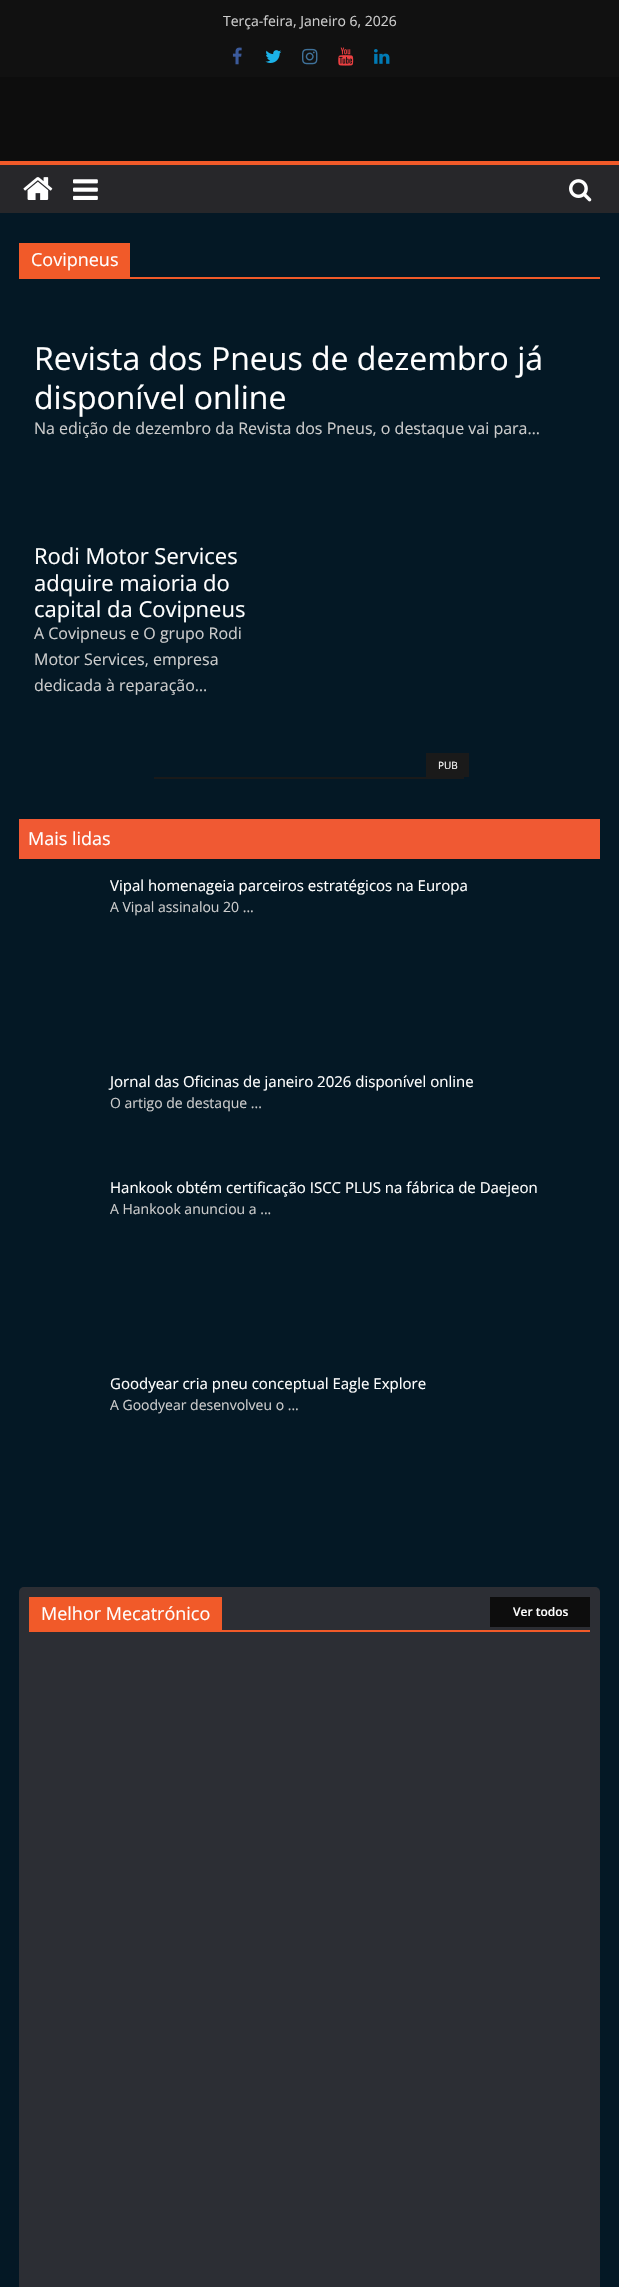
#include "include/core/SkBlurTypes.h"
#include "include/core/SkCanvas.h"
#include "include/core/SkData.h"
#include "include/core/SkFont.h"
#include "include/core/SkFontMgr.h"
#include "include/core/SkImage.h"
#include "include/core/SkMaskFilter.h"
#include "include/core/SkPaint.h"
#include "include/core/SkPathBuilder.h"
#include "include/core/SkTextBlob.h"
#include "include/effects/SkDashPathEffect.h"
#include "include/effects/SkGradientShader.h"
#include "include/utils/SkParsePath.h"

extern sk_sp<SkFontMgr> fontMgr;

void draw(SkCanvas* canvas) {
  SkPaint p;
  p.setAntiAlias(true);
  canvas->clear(SkColorSetRGB(4, 24, 37));
  p.setColor(SkColorSetRGB(13, 13, 13));
  canvas->drawRect(SkRect::MakeLTRB(0, 77, 619, 161), p);
  p.setColor(SkColorSetRGB(17, 17, 17));
  canvas->drawRect(SkRect::MakeLTRB(0, 0, 619, 77), p);
  canvas->drawImageRect(SkImages::DeferredFromEncodedData(SkData::MakeFromFileName("images/1.png")), SkRect::MakeLTRB(232, 47, 242, 65), SkSamplingOptions());
  canvas->drawImageRect(SkImages::DeferredFromEncodedData(SkData::MakeFromFileName("images/2.png")), SkRect::MakeLTRB(265, 50, 282, 63), SkSamplingOptions());
  canvas->drawImageRect(SkImages::DeferredFromEncodedData(SkData::MakeFromFileName("images/3.png")), SkRect::MakeLTRB(302, 48, 318, 65), SkSamplingOptions());
  canvas->drawImageRect(SkImages::DeferredFromEncodedData(SkData::MakeFromFileName("images/4.png")), SkRect::MakeLTRB(338, 47, 354, 66), SkSamplingOptions());
  canvas->drawImageRect(SkImages::DeferredFromEncodedData(SkData::MakeFromFileName("images/5.png")), SkRect::MakeLTRB(374, 49, 390, 64), SkSamplingOptions());
  p.setColor(SkColorSetRGB(39, 39, 42));
  canvas->drawRect(SkRect::MakeLTRB(0, 165, 619, 213), p);
  p.setColor(SkColorSetRGB(241, 90, 41));
  canvas->drawRect(SkRect::MakeLTRB(0, 161, 619, 165), p);
  canvas->drawImageRect(SkImages::DeferredFromEncodedData(SkData::MakeFromFileName("images/6.png")), SkRect::MakeLTRB(23, 177, 53, 200), SkSamplingOptions());
  canvas->drawImageRect(SkImages::DeferredFromEncodedData(SkData::MakeFromFileName("images/7.png")), SkRect::MakeLTRB(73, 179, 98, 200), SkSamplingOptions());
  canvas->drawImageRect(SkImages::DeferredFromEncodedData(SkData::MakeFromFileName("images/8.png")), SkRect::MakeLTRB(569, 179, 592, 202), SkSamplingOptions());
  canvas->drawRect(SkRect::MakeLTRB(19, 277, 600, 279), p);
  canvas->drawRect(SkRect::MakeLTRB(19, 243, 130, 277), p);
  p.setColor(SkColorSetRGB(26, 26, 26));
  canvas->drawRect(SkRect::MakeLTRB(154, 777, 464, 779), p);
  canvas->drawRect(SkRect::MakeLTRB(426, 753, 469, 777), p);
  p.setColor(SkColorSetRGB(240, 89, 51));
  canvas->drawRect(SkRect::MakeLTRB(19, 819, 600, 859), p);
  p.setColor(SkColorSetRGB(44, 46, 52));
  canvas->drawRoundRect(SkRect::MakeLTRB(19, 1587, 600, 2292), 5, 5, p);
  p.setColor(SkColorSetRGB(241, 90, 41));
  canvas->drawRect(SkRect::MakeLTRB(29, 1630, 590, 1632), p);
  canvas->drawRect(SkRect::MakeLTRB(29, 1597, 222, 1630), p);
  p.setColor(SkColorSetRGB(13, 13, 13));
  canvas->drawRect(SkRect::MakeLTRB(490, 1597, 590, 1627), p);
  SkFont font1(fontMgr->matchFamilyStyle("Open Sans", SkFontStyle::Normal()), 14);
  font1.setSubpixel(true);
  p.setColor(SkColorSetRGB(204, 204, 204));
  canvas->drawString("Terça-feira, Janeiro 6, 2026", 223, 26, font1, p);
  SkFont font2(fontMgr->matchFamilyStyle("Open Sans", SkFontStyle::Normal()), 18);
  font2.setSubpixel(true);
  p.setColor(SK_ColorWHITE);
  canvas->drawString("Covipneus", 31, 266, font2, p);
  SkFont font3(fontMgr->matchFamilyStyle("Open Sans", SkFontStyle::Normal()), 32);
  font3.setSubpixel(true);
  canvas->drawString("Revista dos Pneus de dezembro já", 34, 370, font3, p);
  canvas->drawString("disponível online", 34, 409, font3, p);
  SkFont font4(fontMgr->matchFamilyStyle("Open Sans", SkFontStyle::Normal()), 16);
  font4.setSubpixel(true);
  p.setColor(SkColorSetRGB(204, 204, 204));
  canvas->drawString("Na edição de dezembro da Revista dos Pneus, o destaque vai para…", 34, 434, font4, p);
  SkFont font5(fontMgr->matchFamilyStyle("Open Sans", SkFontStyle::Normal()), 22);
  font5.setSubpixel(true);
  p.setColor(SK_ColorWHITE);
  canvas->drawString("Rodi Motor Services", 34, 564, font5, p);
  canvas->drawString("adquire maioria do", 34, 591, font5, p);
  canvas->drawString("capital da Covipneus", 34, 617, font5, p);
  p.setColor(SkColorSetRGB(204, 204, 204));
  canvas->drawString("A Covipneus e O grupo Rodi", 34, 639, font4, p);
  canvas->drawString("Motor Services, empresa", 34, 665, font4, p);
  canvas->drawString("dedicada à reparação…", 34, 691, font4, p);
  SkFont font6(fontMgr->matchFamilyStyle("Open Sans", SkFontStyle::Normal()), 10);
  font6.setSubpixel(true);
  p.setColor(SK_ColorWHITE);
  canvas->drawString("PUB", 438, 769, font6, p);
  canvas->drawString("Mais lidas", 28, 845, font2, p);
  SkFont font7(fontMgr->matchFamilyStyle("Open Sans", SkFontStyle::Normal()), 15);
  font7.setSubpixel(true);
  canvas->drawString("Vipal homenageia parceiros estratégicos na Europa", 110, 891, font7, p);
  p.setColor(SkColorSetRGB(204, 204, 204));
  canvas->drawString("A Vipal assinalou 20 ...", 110, 912, font1, p);
  p.setColor(SK_ColorWHITE);
  canvas->drawString("Jornal das Oficinas de janeiro 2026 disponível online", 110, 1087, font7, p);
  p.setColor(SkColorSetRGB(204, 204, 204));
  canvas->drawString("O artigo de destaque ...", 110, 1108, font1, p);
  p.setColor(SK_ColorWHITE);
  canvas->drawString("Hankook obtém certificação ISCC PLUS na fábrica de Daejeon", 110, 1193, font7, p);
  p.setColor(SkColorSetRGB(204, 204, 204));
  canvas->drawString("A Hankook anunciou a ...", 110, 1214, font1, p);
  p.setColor(SK_ColorWHITE);
  canvas->drawString("Goodyear cria pneu conceptual Eagle Explore", 110, 1389, font7, p);
  p.setColor(SkColorSetRGB(204, 204, 204));
  canvas->drawString("A Goodyear desenvolveu o ...", 110, 1410, font1, p);
  p.setColor(SK_ColorWHITE);
  canvas->drawString("Melhor Mecatrónico", 41, 1620, font2, p);
  SkFont font8(fontMgr->matchFamilyStyle("Open Sans", SkFontStyle(600, SkFontStyle::kNormal_Width, SkFontStyle::kUpright_Slant)), 12);
  font8.setSubpixel(true);
  canvas->drawString("Ver todos", 513, 1616, font8, p);
}
